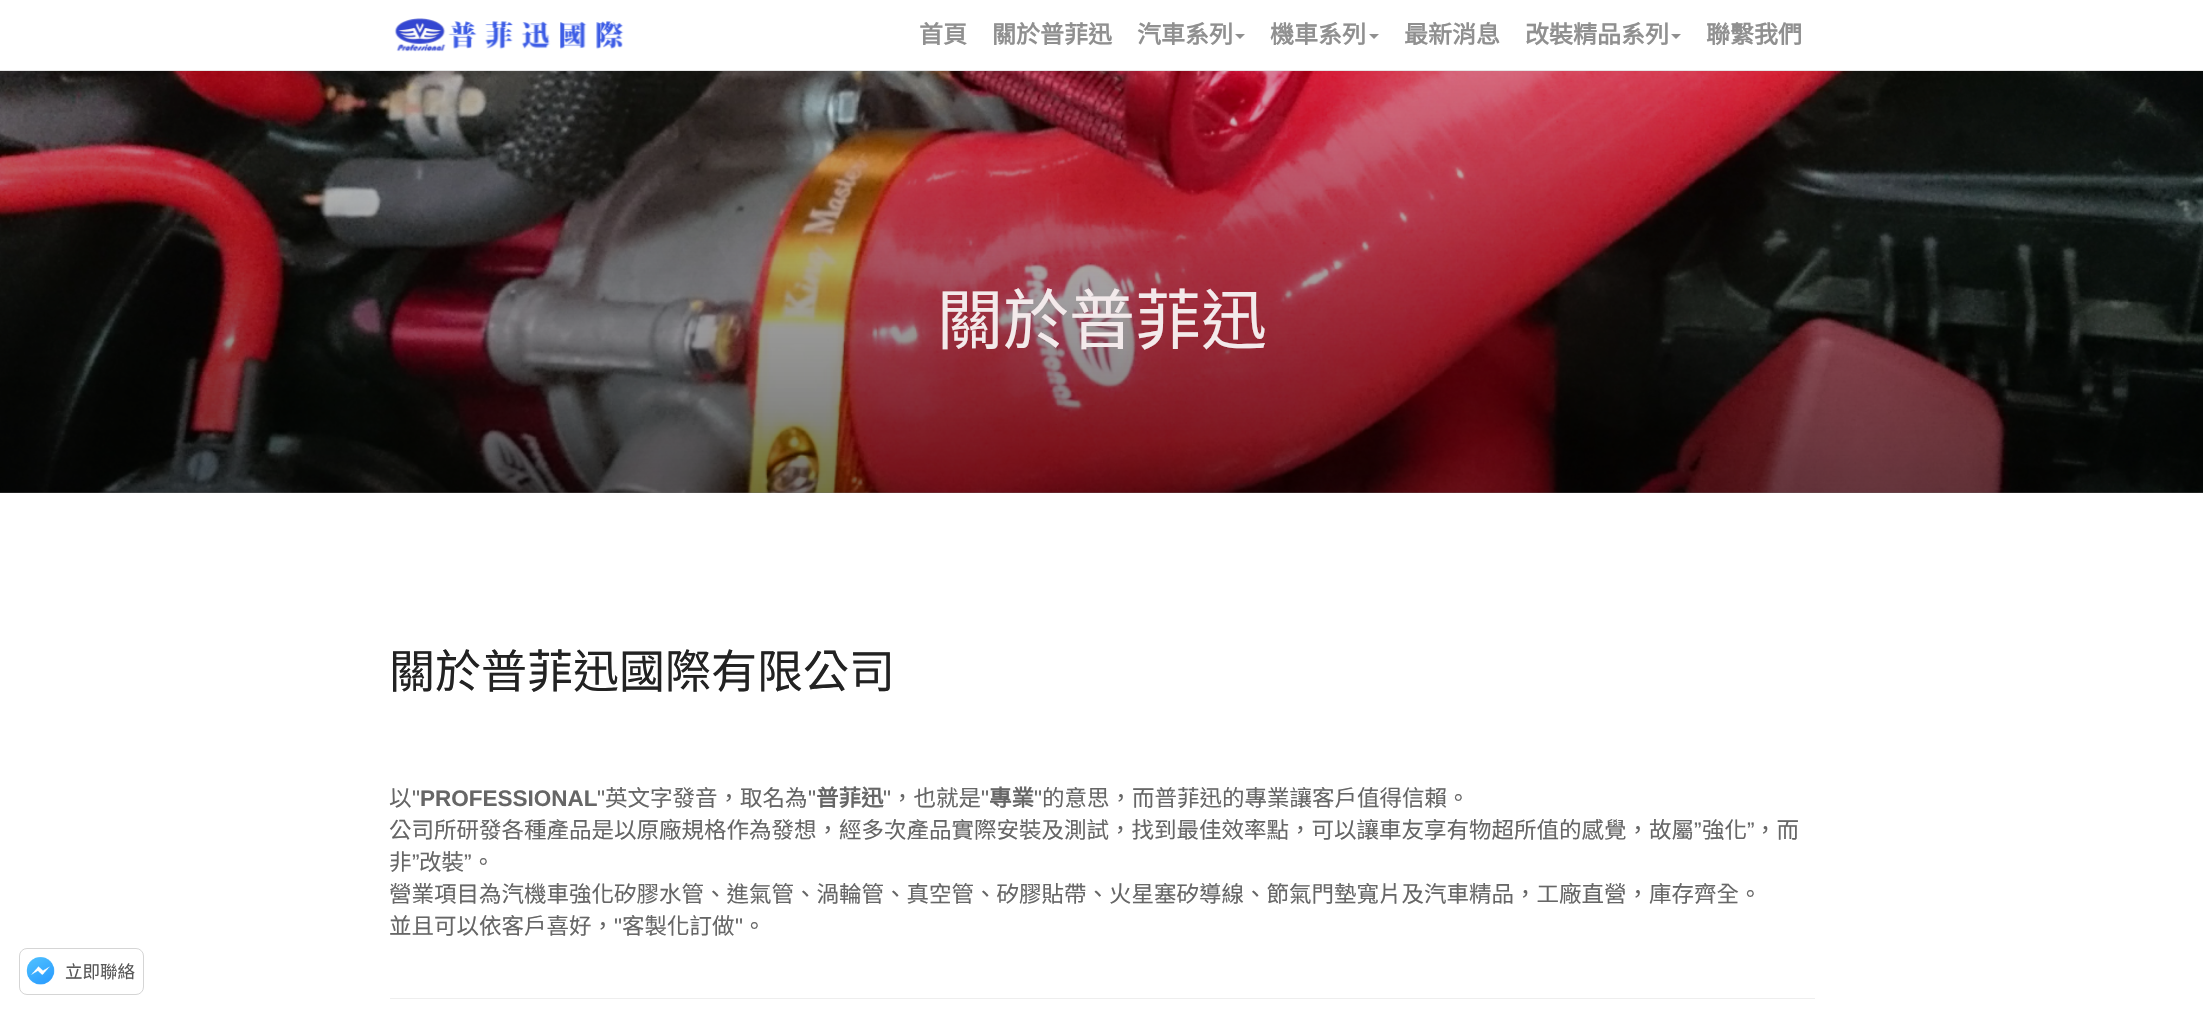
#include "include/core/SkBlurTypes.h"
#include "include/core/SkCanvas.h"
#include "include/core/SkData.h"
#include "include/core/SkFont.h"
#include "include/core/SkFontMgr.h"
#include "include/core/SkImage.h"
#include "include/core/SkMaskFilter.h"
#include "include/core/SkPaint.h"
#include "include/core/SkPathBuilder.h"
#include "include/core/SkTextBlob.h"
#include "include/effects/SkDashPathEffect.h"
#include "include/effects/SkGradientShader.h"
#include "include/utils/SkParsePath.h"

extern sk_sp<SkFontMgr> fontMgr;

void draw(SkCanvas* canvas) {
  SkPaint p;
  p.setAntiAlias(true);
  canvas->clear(SK_ColorWHITE);
  p.setColor(SkColorSetRGB(230, 230, 230));
  canvas->drawRect(SkRect::MakeLTRB(0, 70, 2203, 71), p);
  canvas->drawImageRect(SkImages::DeferredFromEncodedData(SkData::MakeFromFileName("images/1.png")), SkRect::MakeLTRB(394, 18, 624, 52), SkSamplingOptions());
  p.setColor(SkColorSetRGB(144, 144, 144));
  canvas->drawPath(SkPathBuilder().moveTo(1235, 34).lineTo(1245, 34).lineTo(1240, 39).close().detach(), p);
  canvas->drawPath(SkPathBuilder().moveTo(1369, 34).lineTo(1379, 34).lineTo(1374, 39).close().detach(), p);
  canvas->drawPath(SkPathBuilder().moveTo(1671, 34).lineTo(1681, 34).lineTo(1676, 39).close().detach(), p);
  canvas->drawImageRect(SkImages::DeferredFromEncodedData(SkData::MakeFromFileName("images/2.png")), SkRect::MakeLTRB(0, 71, 2203, 493), SkSamplingOptions());
  {
    const SkColor colors[] = {SkColorSetARGB(0, 0, 0, 0), SK_ColorBLACK};
    const float stops[] = {0, 1};
    const SkPoint ends[] = {{1102, -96}, {1102, 964}};
    p.setShader(SkGradientShader::MakeLinear(ends, colors, stops, 2, SkTileMode::kClamp));
    p.setAlpha(255);
  }
  canvas->drawRect(SkRect::MakeLTRB(0, 71, 2203, 493), p);
  p.setShader(nullptr);
  p.setColor(SkColorSetRGB(238, 238, 238));
  canvas->drawRect(SkRect::MakeLTRB(390, 998, 1815, 999), p);
  canvas->drawImageRect(SkImages::DeferredFromEncodedData(SkData::MakeFromFileName("images/3.png")), SkRect::MakeLTRB(26, 957, 55, 985), SkSamplingOptions());
  p.setStyle(SkPaint::kStroke_Style);
  p.setStrokeWidth(1);
  p.setColor(SkColorSetRGB(213, 213, 213));
  canvas->drawRoundRect(SkRect::MakeLTRB(19.5f, 948.5f, 143.5f, 994.5f), 7.5f, 7.5f, p);
  SkFont font1(fontMgr->matchFamilyStyle("Noto Sans CJK TC", SkFontStyle::Bold()), 24);
  font1.setSubpixel(true);
  p.setStyle(SkPaint::kFill_Style);
  p.setColor(SkColorSetRGB(144, 144, 144));
  canvas->drawString("首頁", 919, 43, font1, p);
  canvas->drawString("關於普菲迅", 992, 43, font1, p);
  canvas->drawString("汽車系列", 1137, 43, font1, p);
  canvas->drawString("機車系列", 1270, 43, font1, p);
  canvas->drawString("最新消息", 1404, 43, font1, p);
  canvas->drawString("改裝精品系列", 1525, 43, font1, p);
  canvas->drawString("聯繫我們", 1706, 43, font1, p);
  SkFont font2(fontMgr->matchFamilyStyle("Noto Sans CJK TC", SkFontStyle::Normal()), 66);
  font2.setSubpixel(true);
  p.setColor(SkColorSetRGB(243, 234, 235));
  canvas->drawString("關於普菲迅", 937, 344, font2, p);
  SkFont font3(fontMgr->matchFamilyStyle("Noto Sans CJK TC", SkFontStyle::Normal()), 46);
  font3.setSubpixel(true);
  p.setColor(SkColorSetRGB(34, 34, 34));
  canvas->drawString("關於普菲迅國際有限公司", 389, 688, font3, p);
  SkFont font4(fontMgr->matchFamilyStyle("Noto Sans CJK TC", SkFontStyle::Normal()), 22.5f);
  font4.setSubpixel(true);
  p.setColor(SkColorSetRGB(102, 102, 102));
  canvas->drawString("以", 389, 806, font4, p);
  SkFont font5(fontMgr->matchFamilyStyle("Liberation Sans", SkFontStyle::Normal()), 22.5f);
  font5.setSubpixel(true);
  canvas->drawString("\"", 412, 806, font5, p);
  SkFont font6(fontMgr->matchFamilyStyle("Liberation Sans", SkFontStyle::Bold()), 22.5f);
  font6.setSubpixel(true);
  canvas->drawString("PROFESSIONAL", 420, 806, font6, p);
  canvas->drawString("\"", 597, 806, font5, p);
  canvas->drawString("英文字發音，取名為", 605, 806, font4, p);
  canvas->drawString("\"", 808, 806, font5, p);
  SkFont font7(fontMgr->matchFamilyStyle("Noto Sans CJK TC", SkFontStyle::Bold()), 22.5f);
  font7.setSubpixel(true);
  canvas->drawString("普菲迅", 816, 806, font7, p);
  canvas->drawString("\"", 883, 806, font5, p);
  canvas->drawString("，也就是", 891, 806, font4, p);
  canvas->drawString("\"", 981, 806, font5, p);
  canvas->drawString("專業", 989, 806, font7, p);
  canvas->drawString("\"", 1034, 806, font5, p);
  canvas->drawString("的意思，而普菲迅的專業讓客戶值得信賴。", 1042, 806, font4, p);
  canvas->drawString("公司所研發各種產品是以原廠規格作為發想，經多次產品實際安裝及測試，找到最佳效率點，可以讓車友享有物超所值的感覺，故屬", 389, 838, font4, p);
  canvas->drawString("”", 1694, 838, font5, p);
  canvas->drawString("強化", 1702, 838, font4, p);
  canvas->drawString("”", 1747, 838, font5, p);
  canvas->drawString("，而", 1754, 838, font4, p);
  canvas->drawString("非", 389, 870, font4, p);
  canvas->drawString("”", 412, 870, font5, p);
  canvas->drawString("改裝", 419, 870, font4, p);
  canvas->drawString("”", 464, 870, font5, p);
  canvas->drawString("。", 472, 870, font4, p);
  canvas->drawString("營業項目為汽機車強化矽膠水管、進氣管、渦輪管、真空管、矽膠貼帶、火星塞矽導線、節氣門墊寬片及汽車精品，工廠直營，庫存齊全。", 389, 902, font4, p);
  canvas->drawString("並且可以依客戶喜好，", 389, 934, font4, p);
  canvas->drawString("\"", 614, 934, font5, p);
  canvas->drawString("客製化訂做", 622, 934, font4, p);
  canvas->drawString("\"", 735, 934, font5, p);
  canvas->drawString("。", 743, 934, font4, p);
  SkFont font8(fontMgr->matchFamilyStyle("Noto Sans CJK TC", SkFontStyle::Normal()), 17.5f);
  font8.setSubpixel(true);
  p.setColor(SkColorSetRGB(87, 87, 87));
  canvas->drawString("立即聯絡", 65, 978, font8, p);
}
